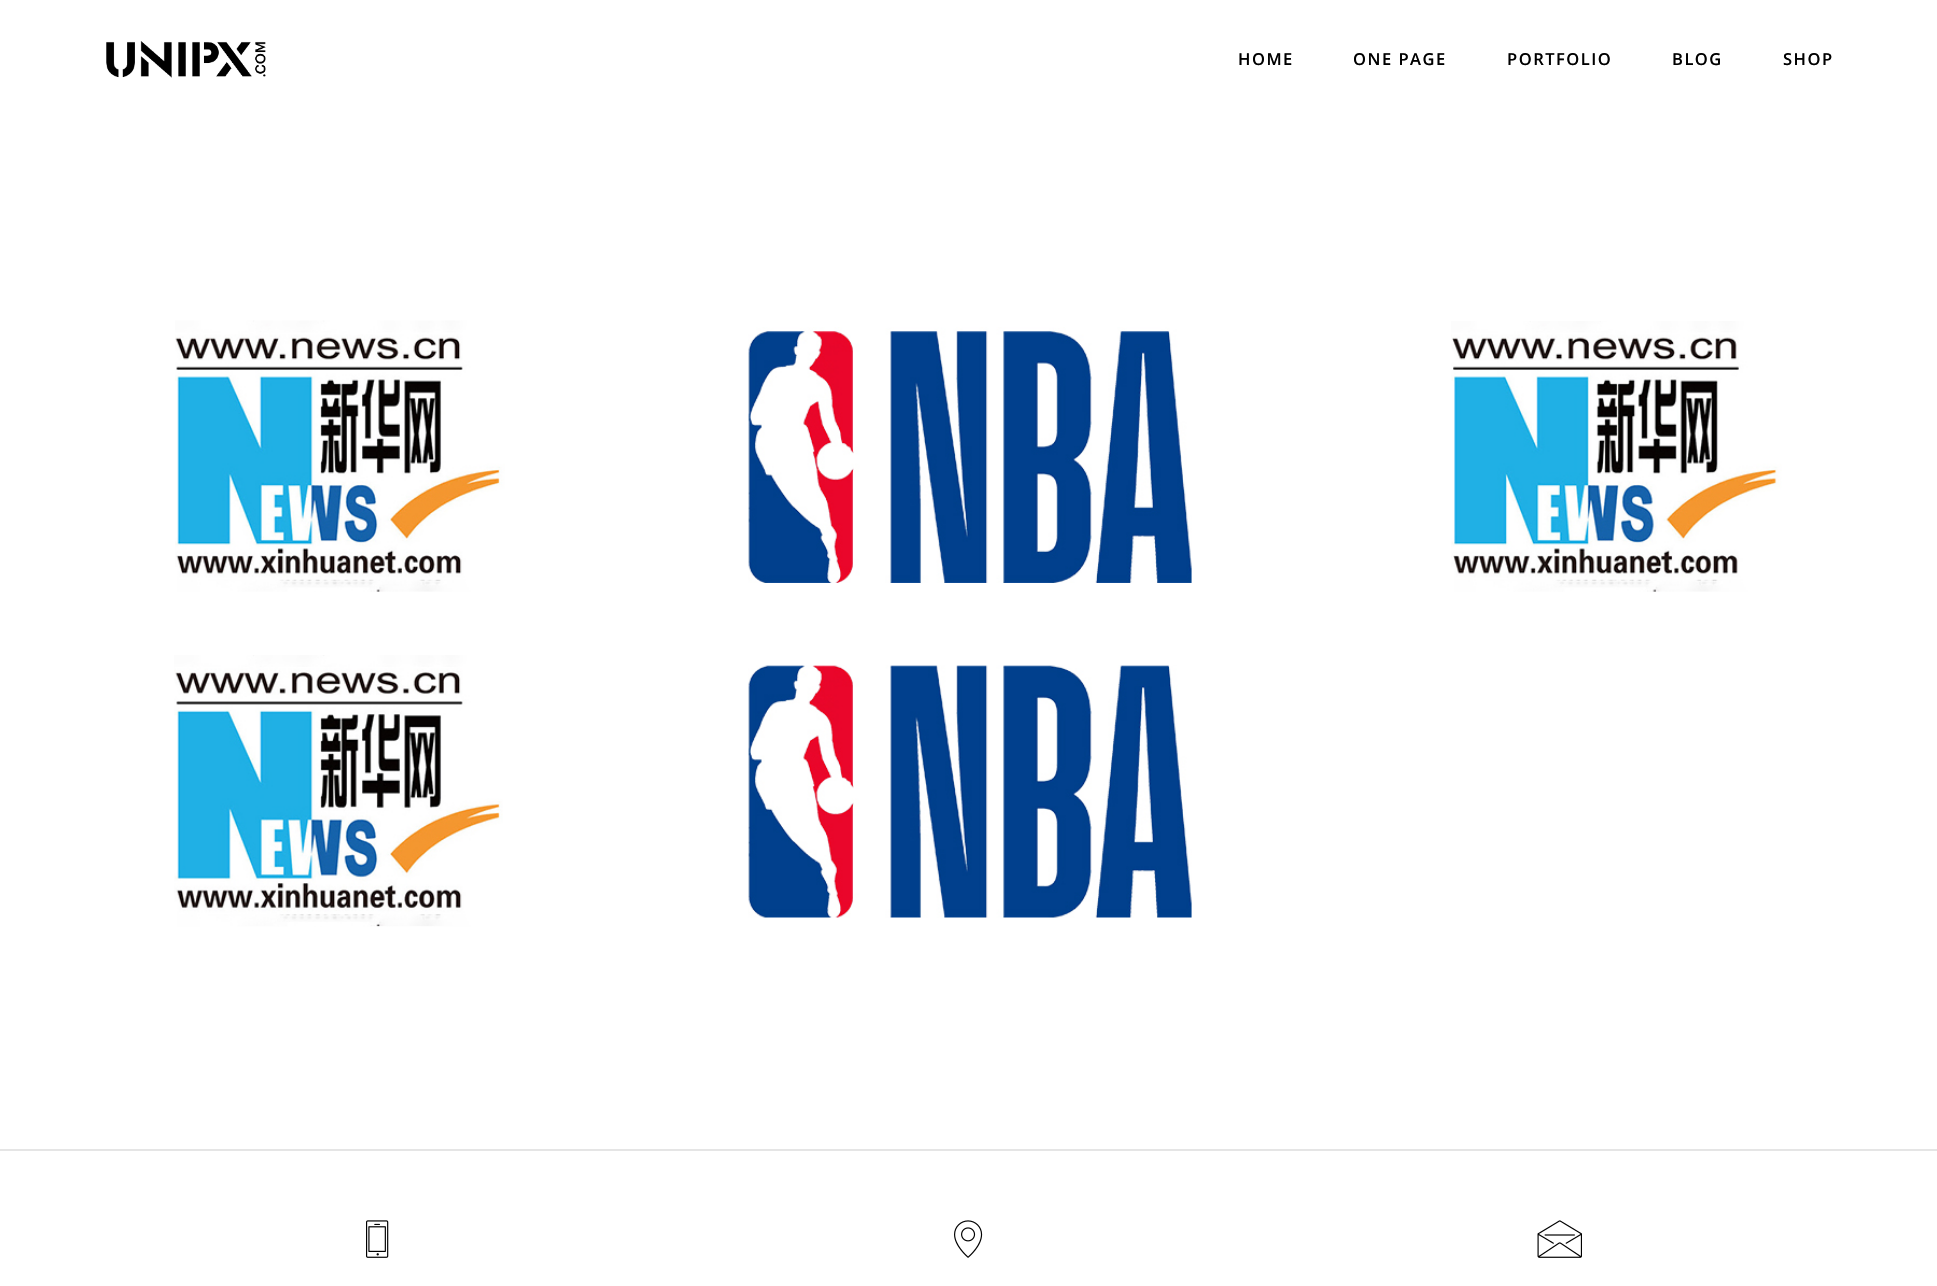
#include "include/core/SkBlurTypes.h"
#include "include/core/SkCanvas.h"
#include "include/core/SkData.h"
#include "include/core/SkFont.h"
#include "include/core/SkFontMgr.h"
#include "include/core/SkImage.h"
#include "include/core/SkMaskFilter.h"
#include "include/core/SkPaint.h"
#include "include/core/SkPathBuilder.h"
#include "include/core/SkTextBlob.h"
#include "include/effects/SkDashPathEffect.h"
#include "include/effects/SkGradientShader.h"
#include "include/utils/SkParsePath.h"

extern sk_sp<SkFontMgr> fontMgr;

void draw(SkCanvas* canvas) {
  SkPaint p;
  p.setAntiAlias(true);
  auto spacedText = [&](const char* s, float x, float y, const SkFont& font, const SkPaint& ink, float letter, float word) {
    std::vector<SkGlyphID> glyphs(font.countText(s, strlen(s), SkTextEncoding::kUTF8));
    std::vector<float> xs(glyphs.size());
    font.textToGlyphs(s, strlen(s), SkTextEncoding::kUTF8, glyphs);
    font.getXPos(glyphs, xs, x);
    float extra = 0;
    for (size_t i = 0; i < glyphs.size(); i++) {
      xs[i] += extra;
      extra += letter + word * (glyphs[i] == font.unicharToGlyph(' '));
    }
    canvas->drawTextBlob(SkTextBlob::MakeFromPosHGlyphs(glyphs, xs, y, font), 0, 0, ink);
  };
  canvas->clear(SK_ColorWHITE);
  canvas->drawImageRect(SkImages::DeferredFromEncodedData(SkData::MakeFromFileName("images/1.png")), SkRect::MakeLTRB(106, 41, 266, 78), SkSamplingOptions());
  canvas->drawImageRect(SkImages::DeferredFromEncodedData(SkData::MakeFromFileName("images/2.png")), SkRect::MakeLTRB(175, 320, 505, 592), SkSamplingOptions());
  canvas->drawImageRect(SkImages::DeferredFromEncodedData(SkData::MakeFromFileName("images/3.png")), SkRect::MakeLTRB(748, 327, 1192, 583), SkSamplingOptions());
  canvas->drawImageRect(SkImages::DeferredFromEncodedData(SkData::MakeFromFileName("images/4.png")), SkRect::MakeLTRB(1451, 321, 1782, 592), SkSamplingOptions());
  canvas->drawImageRect(SkImages::DeferredFromEncodedData(SkData::MakeFromFileName("images/5.png")), SkRect::MakeLTRB(174, 655, 503, 927), SkSamplingOptions());
  canvas->drawImageRect(SkImages::DeferredFromEncodedData(SkData::MakeFromFileName("images/6.png")), SkRect::MakeLTRB(748, 665, 1192, 918), SkSamplingOptions());
  p.setColor(SkColorSetRGB(229, 229, 229));
  canvas->drawRect(SkRect::MakeLTRB(0, 1149, 1937, 1151), p);
  canvas->drawImageRect(SkImages::DeferredFromEncodedData(SkData::MakeFromFileName("images/7.png")), SkRect::MakeLTRB(366, 1220, 389, 1258), SkSamplingOptions());
  canvas->drawImageRect(SkImages::DeferredFromEncodedData(SkData::MakeFromFileName("images/8.png")), SkRect::MakeLTRB(954, 1220, 983, 1258), SkSamplingOptions());
  canvas->drawImageRect(SkImages::DeferredFromEncodedData(SkData::MakeFromFileName("images/9.png")), SkRect::MakeLTRB(1537, 1220, 1582, 1258), SkSamplingOptions());
  SkFont font1(fontMgr->matchFamilyStyle("Open Sans", SkFontStyle(600, SkFontStyle::kNormal_Width, SkFontStyle::kUpright_Slant)), 16.5f);
  font1.setSubpixel(true);
  p.setColor(SK_ColorBLACK);
  spacedText("HOME", 1238, 65, font1, p, 1.5f, 0);
  spacedText("ONE PAGE", 1353, 65, font1, p, 1.5f, 0);
  spacedText("PORTFOLIO", 1507, 65, font1, p, 1.5f, 0);
  spacedText("BLOG", 1672, 65, font1, p, 1.5f, 0);
  spacedText("SHOP", 1783, 65, font1, p, 1.5f, 0);
}
